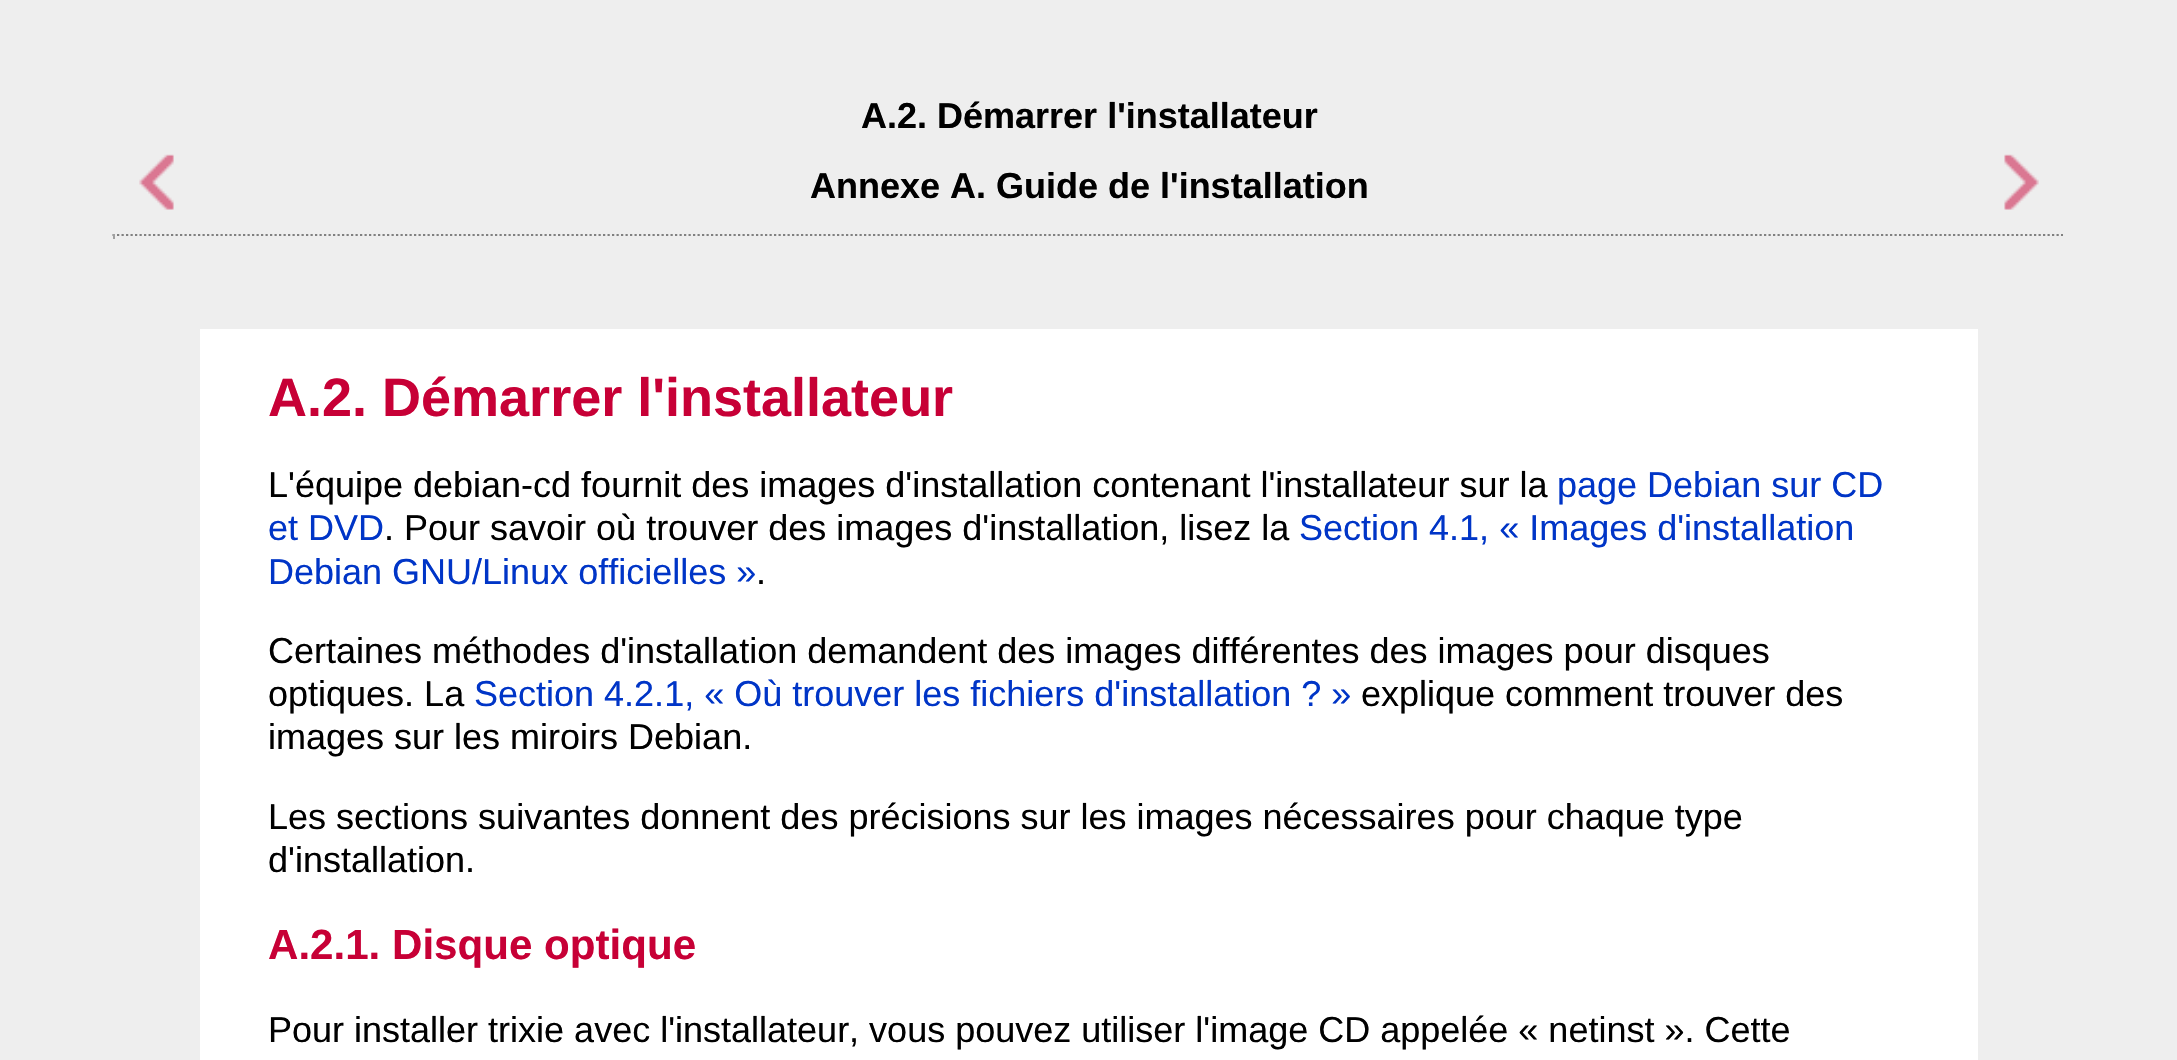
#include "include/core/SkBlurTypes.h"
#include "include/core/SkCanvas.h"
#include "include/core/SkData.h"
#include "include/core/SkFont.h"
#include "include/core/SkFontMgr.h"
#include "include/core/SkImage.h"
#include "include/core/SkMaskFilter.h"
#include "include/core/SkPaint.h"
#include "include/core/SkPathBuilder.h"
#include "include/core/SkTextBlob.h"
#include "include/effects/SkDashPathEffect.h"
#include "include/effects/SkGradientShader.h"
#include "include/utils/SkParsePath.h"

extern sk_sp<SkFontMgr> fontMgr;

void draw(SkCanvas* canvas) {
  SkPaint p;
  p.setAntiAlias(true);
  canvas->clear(SkColorSetRGB(238, 238, 238));
  canvas->drawImageRect(SkImages::DeferredFromEncodedData(SkData::MakeFromFileName("images/1.png")), SkRect::MakeLTRB(139, 154, 174, 210), SkSamplingOptions());
  canvas->drawImageRect(SkImages::DeferredFromEncodedData(SkData::MakeFromFileName("images/2.png")), SkRect::MakeLTRB(2004, 154, 2039, 210), SkSamplingOptions());
  p.setStyle(SkPaint::kStroke_Style);
  p.setStrokeWidth(2.2f);
  p.setColor(SkColorSetRGB(128, 128, 128));
  p.setPathEffect(SkDashPathEffect::Make({{2.25f, 2.25f}}, 0));
  canvas->drawPath(SkPathBuilder().moveTo(112.5f, 235).lineTo(2065.5f, 235).detach(), p);
  p.setPathEffect(nullptr);
  p.setStyle(SkPaint::kFill_Style);
  p.setColor(SkColorSetRGB(238, 238, 238));
  canvas->drawRect(SkRect::MakeLTRB(2063, 234, 2064, 239), p);
  canvas->drawRect(SkRect::MakeLTRB(113, 236, 2066, 237), p);
  p.setColor(SkColorSetRGB(159, 159, 159));
  canvas->drawRect(SkRect::MakeLTRB(113, 234, 115, 239), p);
  p.setColor(SK_ColorWHITE);
  canvas->drawRect(SkRect::MakeLTRB(200, 329, 1978, 1060), p);
  SkFont font1(fontMgr->matchFamilyStyle("Liberation Sans", SkFontStyle::Bold()), 36);
  font1.setSubpixel(true);
  p.setColor(SK_ColorBLACK);
  canvas->drawString("A.2. Démarrer l'installateur", 861, 128, font1, p);
  canvas->drawString("Annexe A. Guide de l'installation", 810, 198, font1, p);
  SkFont font2(fontMgr->matchFamilyStyle("Liberation Sans", SkFontStyle::Bold()), 54);
  font2.setSubpixel(true);
  p.setColor(SkColorSetRGB(199, 0, 54));
  canvas->drawString("A.2. Démarrer l'installateur", 268, 416, font2, p);
  SkFont font3(fontMgr->matchFamilyStyle("Liberation Sans", SkFontStyle::Normal()), 36);
  font3.setSubpixel(true);
  p.setColor(SK_ColorBLACK);
  canvas->drawString("L'équipe debian-cd fournit des images d'installation contenant l'installateur sur la", 268, 497, font3, p);
  p.setColor(SkColorSetRGB(0, 53, 199));
  canvas->drawString("page Debian sur CD", 1557, 497, font3, p);
  canvas->drawString("et DVD", 268, 540, font3, p);
  p.setColor(SK_ColorBLACK);
  canvas->drawString(". Pour savoir où trouver des images d'installation, lisez la", 384, 540, font3, p);
  p.setColor(SkColorSetRGB(0, 53, 199));
  canvas->drawString("Section 4.1, « Images d'installation", 1299, 540, font3, p);
  canvas->drawString("Debian GNU/Linux officielles »", 268, 584, font3, p);
  p.setColor(SK_ColorBLACK);
  canvas->drawString(".", 756, 584, font3, p);
  canvas->drawString("Certaines méthodes d'installation demandent des images différentes des images pour disques", 268, 663, font3, p);
  canvas->drawString("optiques. La", 268, 706, font3, p);
  p.setColor(SkColorSetRGB(0, 53, 199));
  canvas->drawString("Section 4.2.1, « Où trouver les fichiers d'installation ? »", 474, 706, font3, p);
  p.setColor(SK_ColorBLACK);
  canvas->drawString("explique comment trouver des", 1361, 706, font3, p);
  canvas->drawString("images sur les miroirs Debian.", 268, 749, font3, p);
  canvas->drawString("Les sections suivantes donnent des précisions sur les images nécessaires pour chaque type", 268, 829, font3, p);
  canvas->drawString("d'installation.", 268, 872, font3, p);
  SkFont font4(fontMgr->matchFamilyStyle("Liberation Sans", SkFontStyle::Bold()), 42.1f);
  font4.setSubpixel(true);
  p.setColor(SkColorSetRGB(199, 0, 54));
  canvas->drawString("A.2.1. Disque optique", 268, 959, font4, p);
  p.setColor(SK_ColorBLACK);
  canvas->drawString("Pour installer trixie avec l'installateur, vous pouvez utiliser l'image CD appelée « netinst ». Cette", 268, 1042, font3, p);
}
